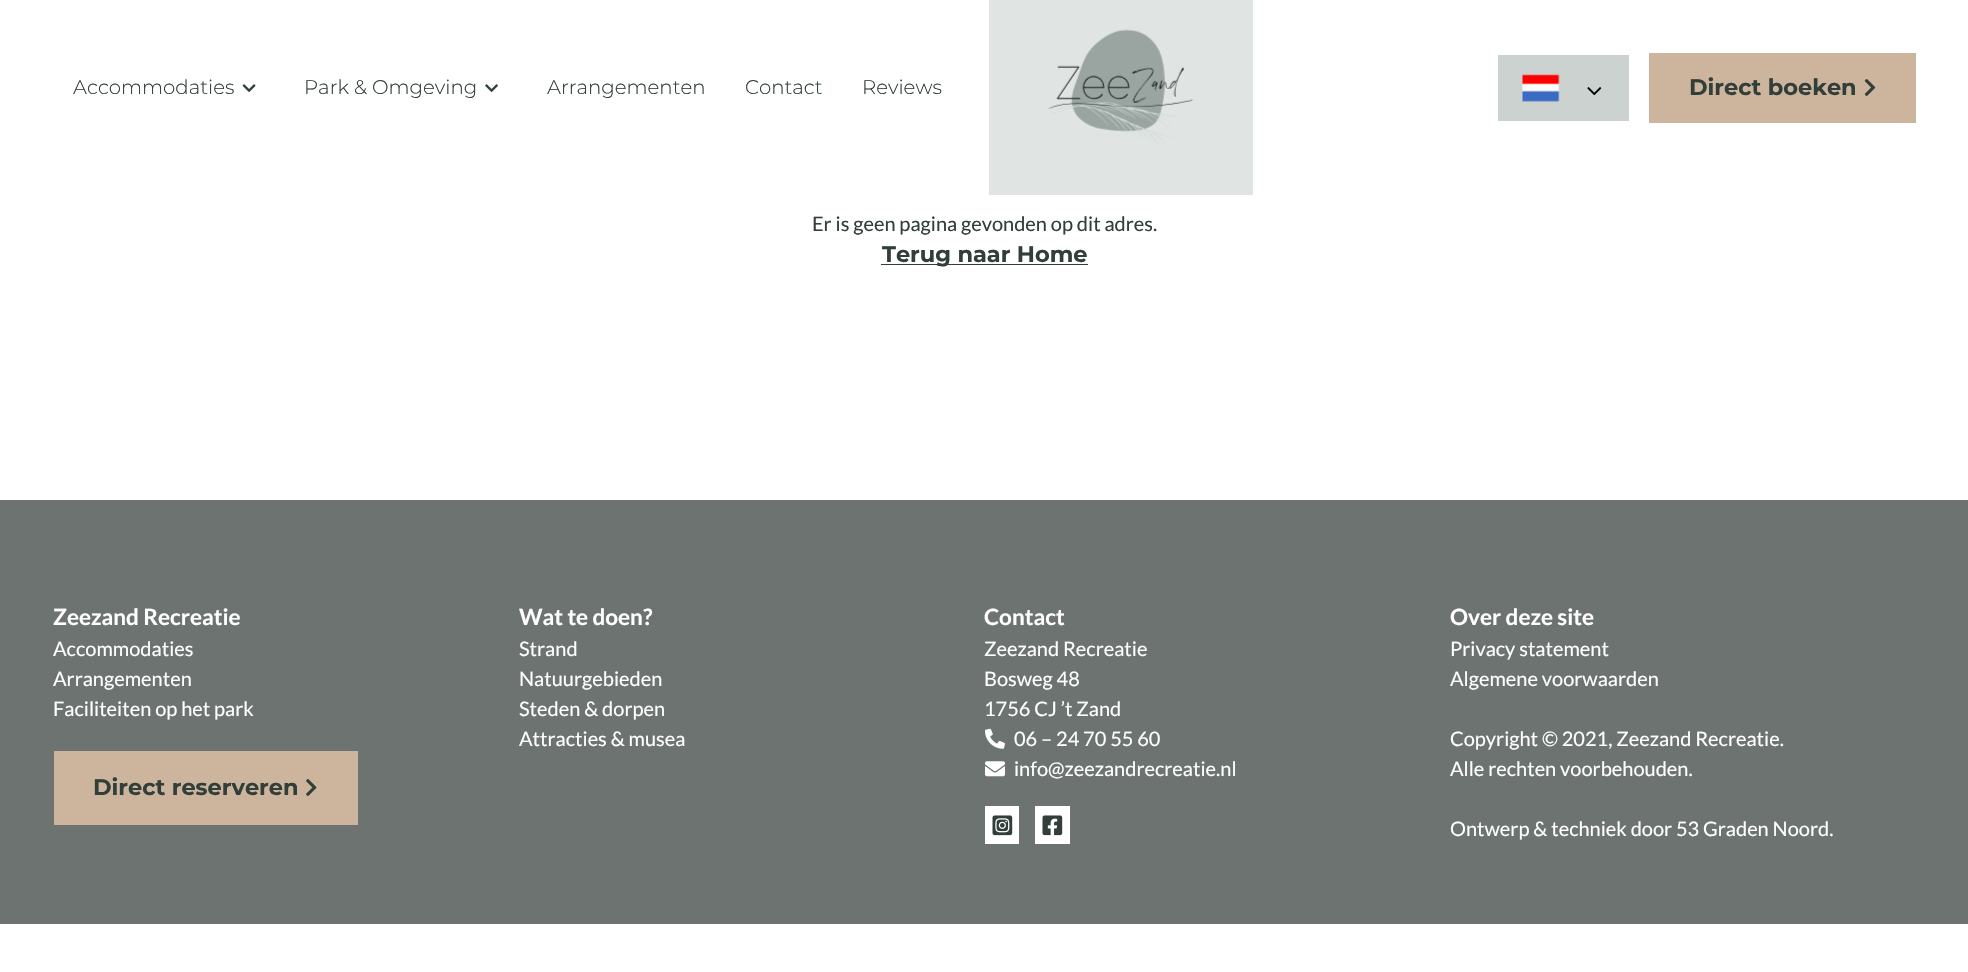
#include "include/core/SkBlurTypes.h"
#include "include/core/SkCanvas.h"
#include "include/core/SkData.h"
#include "include/core/SkFont.h"
#include "include/core/SkFontMgr.h"
#include "include/core/SkImage.h"
#include "include/core/SkMaskFilter.h"
#include "include/core/SkPaint.h"
#include "include/core/SkPathBuilder.h"
#include "include/core/SkTextBlob.h"
#include "include/effects/SkDashPathEffect.h"
#include "include/effects/SkGradientShader.h"
#include "include/utils/SkParsePath.h"

extern sk_sp<SkFontMgr> fontMgr;

void draw(SkCanvas* canvas) {
  SkPaint p;
  p.setAntiAlias(true);
  canvas->clear(SK_ColorWHITE);
  canvas->drawImageRect(SkImages::DeferredFromEncodedData(SkData::MakeFromFileName("images/1.png")), SkRect::MakeLTRB(242, 84, 256, 92), SkSamplingOptions());
  canvas->drawImageRect(SkImages::DeferredFromEncodedData(SkData::MakeFromFileName("images/2.png")), SkRect::MakeLTRB(485, 84, 498, 92), SkSamplingOptions());
  p.setColor(SkColorSetRGB(224, 228, 227));
  canvas->drawRect(SkRect::MakeLTRB(989, 0, 1253, 195), p);
  canvas->drawImageRect(SkImages::DeferredFromEncodedData(SkData::MakeFromFileName("images/3.png")), SkRect::MakeLTRB(1048, 29, 1193, 143), SkSamplingOptions());
  p.setColor(SkColorSetRGB(204, 210, 208));
  canvas->drawRect(SkRect::MakeLTRB(1498, 55, 1629, 121), p);
  canvas->drawImageRect(SkImages::DeferredFromEncodedData(SkData::MakeFromFileName("images/4.png")), SkRect::MakeLTRB(1522, 74, 1560, 102), SkSamplingOptions());
  canvas->drawImageRect(SkImages::DeferredFromEncodedData(SkData::MakeFromFileName("images/5.png")), SkRect::MakeLTRB(1587, 87, 1602, 96), SkSamplingOptions());
  p.setColor(SkColorSetRGB(205, 180, 156));
  canvas->drawRect(SkRect::MakeLTRB(1649, 53, 1916, 123), p);
  canvas->drawImageRect(SkImages::DeferredFromEncodedData(SkData::MakeFromFileName("images/6.png")), SkRect::MakeLTRB(1864, 79, 1876, 96), SkSamplingOptions());
  p.setColor(SkColorSetRGB(49, 62, 58));
  canvas->drawRect(SkRect::MakeLTRB(881, 264, 1088, 265), p);
  p.setColor(SkColorSetRGB(108, 115, 113));
  canvas->drawRect(SkRect::MakeLTRB(0, 500, 1968, 924), p);
  p.setColor(SkColorSetRGB(205, 180, 156));
  canvas->drawRect(SkRect::MakeLTRB(54, 751, 358, 825), p);
  canvas->drawImageRect(SkImages::DeferredFromEncodedData(SkData::MakeFromFileName("images/7.png")), SkRect::MakeLTRB(306, 779, 317, 796), SkSamplingOptions());
  canvas->drawImageRect(SkImages::DeferredFromEncodedData(SkData::MakeFromFileName("images/8.png")), SkRect::MakeLTRB(985, 728, 1005, 749), SkSamplingOptions());
  canvas->drawImageRect(SkImages::DeferredFromEncodedData(SkData::MakeFromFileName("images/9.png")), SkRect::MakeLTRB(985, 761, 1005, 777), SkSamplingOptions());
  p.setColor(SK_ColorWHITE);
  canvas->drawRect(SkRect::MakeLTRB(985, 806, 1019, 844), p);
  canvas->drawImageRect(SkImages::DeferredFromEncodedData(SkData::MakeFromFileName("images/10.png")), SkRect::MakeLTRB(992, 815, 1013, 836), SkSamplingOptions());
  canvas->drawRect(SkRect::MakeLTRB(1035, 806, 1070, 844), p);
  canvas->drawImageRect(SkImages::DeferredFromEncodedData(SkData::MakeFromFileName("images/11.png")), SkRect::MakeLTRB(1042, 815, 1063, 836), SkSamplingOptions());
  SkFont font1(fontMgr->matchFamilyStyle("Montserrat", SkFontStyle(300, SkFontStyle::kNormal_Width, SkFontStyle::kUpright_Slant)), 19.75f);
  font1.setSubpixel(true);
  p.setColor(SkColorSetRGB(49, 62, 58));
  canvas->drawString("Accommodaties", 73, 94, font1, p);
  canvas->drawString("Park & Omgeving", 304, 94, font1, p);
  canvas->drawString("Arrangementen", 547, 94, font1, p);
  canvas->drawString("Contact", 745, 94, font1, p);
  canvas->drawString("Reviews", 862, 94, font1, p);
  SkFont font2(fontMgr->matchFamilyStyle("Montserrat", SkFontStyle::Bold()), 22.5f);
  font2.setSubpixel(true);
  canvas->drawString("Direct boeken", 1689, 95, font2, p);
  SkFont font3(fontMgr->matchFamilyStyle("Lato", SkFontStyle::Normal()), 20);
  font3.setSubpixel(true);
  canvas->drawString("Er is geen pagina gevonden op dit adres.", 812, 231, font3, p);
  canvas->drawString("Terug naar Home", 882, 262, font2, p);
  SkFont font4(fontMgr->matchFamilyStyle("Lato", SkFontStyle::Bold()), 22.5f);
  font4.setSubpixel(true);
  p.setColor(SK_ColorWHITE);
  canvas->drawString("Zeezand Recreatie", 53, 625, font4, p);
  canvas->drawString("Accommodaties", 53, 656, font3, p);
  canvas->drawString("Arrangementen", 53, 686, font3, p);
  canvas->drawString("Faciliteiten op het park", 53, 716, font3, p);
  p.setColor(SkColorSetRGB(49, 62, 58));
  canvas->drawString("Direct reserveren", 93, 795, font2, p);
  p.setColor(SK_ColorWHITE);
  canvas->drawString("Wat te doen?", 519, 625, font4, p);
  canvas->drawString("Strand", 519, 656, font3, p);
  canvas->drawString("Natuurgebieden", 519, 686, font3, p);
  canvas->drawString("Steden & dorpen", 519, 716, font3, p);
  canvas->drawString("Attracties & musea", 519, 746, font3, p);
  canvas->drawString("Contact", 984, 625, font4, p);
  canvas->drawString("Zeezand Recreatie", 984, 656, font3, p);
  canvas->drawString("Bosweg 48", 984, 686, font3, p);
  canvas->drawString("1756 CJ ’t Zand", 984, 716, font3, p);
  canvas->drawString("06 – 24 70 55 60", 1014, 746, font3, p);
  canvas->drawString("info@zeezandrecreatie.nl", 1014, 776, font3, p);
  canvas->drawString("Over deze site", 1450, 625, font4, p);
  canvas->drawString("Privacy statement", 1450, 656, font3, p);
  canvas->drawString("Algemene voorwaarden", 1450, 686, font3, p);
  canvas->drawString("Copyright © 2021, Zeezand Recreatie.", 1450, 746, font3, p);
  canvas->drawString("Alle rechten voorbehouden.", 1450, 776, font3, p);
  canvas->drawString("Ontwerp & techniek door 53 Graden Noord.", 1450, 836, font3, p);
}
